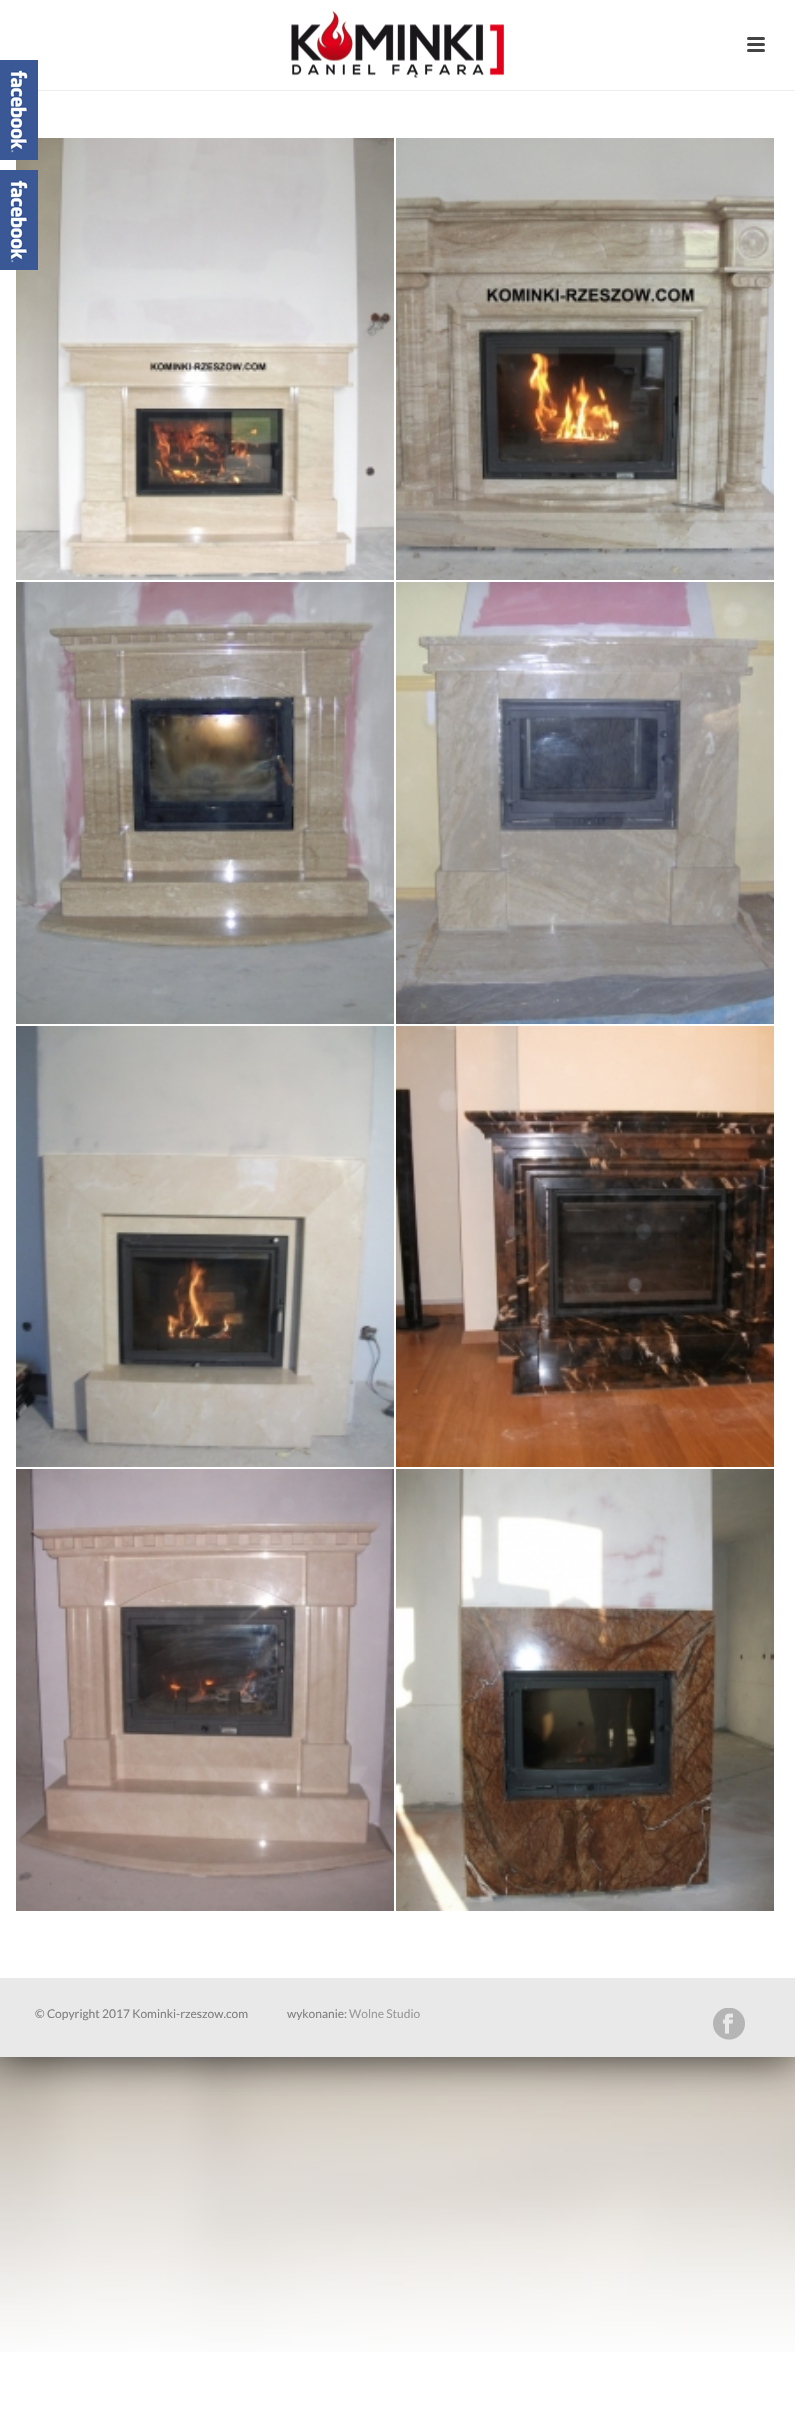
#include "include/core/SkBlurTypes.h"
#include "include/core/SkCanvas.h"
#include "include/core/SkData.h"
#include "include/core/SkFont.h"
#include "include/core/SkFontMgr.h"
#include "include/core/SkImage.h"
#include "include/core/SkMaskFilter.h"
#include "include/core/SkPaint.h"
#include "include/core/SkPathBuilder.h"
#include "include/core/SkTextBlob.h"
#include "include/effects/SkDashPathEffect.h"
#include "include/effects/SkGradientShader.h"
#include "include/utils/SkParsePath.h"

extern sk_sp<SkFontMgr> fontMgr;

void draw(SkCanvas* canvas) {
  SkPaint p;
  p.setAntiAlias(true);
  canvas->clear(SK_ColorWHITE);
  canvas->drawImageRect(SkImages::DeferredFromEncodedData(SkData::MakeFromFileName("images/1.png")), SkRect::MakeLTRB(0, 2057, 795, 2352), SkSamplingOptions());
  p.setColor(SkColorSetARGB(199, 0, 0, 0));
  p.setMaskFilter(SkMaskFilter::MakeBlur(kNormal_SkBlurStyle, 20));
  canvas->drawRect(SkRect::MakeLTRB(0, 0, 795, 2057), p);
  p.setMaskFilter(nullptr);
  p.setColor(SK_ColorWHITE);
  canvas->drawRect(SkRect::MakeLTRB(0, 0, 795, 90), p);
  canvas->drawRect(SkRect::MakeLTRB(0, 91, 795, 1978), p);
  canvas->drawImageRect(SkImages::DeferredFromEncodedData(SkData::MakeFromFileName("images/4.png")), SkRect::MakeLTRB(16, 138, 394, 580), SkSamplingOptions());
  canvas->drawImageRect(SkImages::DeferredFromEncodedData(SkData::MakeFromFileName("images/2.png")), SkRect::MakeLTRB(0, 60, 38, 160), SkSamplingOptions());
  canvas->drawImageRect(SkImages::DeferredFromEncodedData(SkData::MakeFromFileName("images/2.png")), SkRect::MakeLTRB(0, 170, 38, 270), SkSamplingOptions());
  p.setColor(SkColorSetRGB(237, 237, 237));
  canvas->drawRect(SkRect::MakeLTRB(38, 90, 795, 91), p);
  canvas->drawImageRect(SkImages::DeferredFromEncodedData(SkData::MakeFromFileName("images/3.png")), SkRect::MakeLTRB(291, 11, 504, 78), SkSamplingOptions());
  p.setColor(SkColorSetRGB(68, 68, 68));
  canvas->drawRoundRect(SkRect::MakeLTRB(747, 37, 765, 40), 1.5f, 1.5f, p);
  canvas->drawRoundRect(SkRect::MakeLTRB(747, 43, 765, 46), 1.5f, 1.5f, p);
  canvas->drawRoundRect(SkRect::MakeLTRB(747, 49, 765, 52), 1.5f, 1.5f, p);
  canvas->drawImageRect(SkImages::DeferredFromEncodedData(SkData::MakeFromFileName("images/5.png")), SkRect::MakeLTRB(396, 138, 774, 580), SkSamplingOptions());
  canvas->drawImageRect(SkImages::DeferredFromEncodedData(SkData::MakeFromFileName("images/6.png")), SkRect::MakeLTRB(16, 582, 394, 1024), SkSamplingOptions());
  canvas->drawImageRect(SkImages::DeferredFromEncodedData(SkData::MakeFromFileName("images/7.png")), SkRect::MakeLTRB(396, 582, 774, 1024), SkSamplingOptions());
  canvas->drawImageRect(SkImages::DeferredFromEncodedData(SkData::MakeFromFileName("images/8.png")), SkRect::MakeLTRB(16, 1026, 394, 1467), SkSamplingOptions());
  canvas->drawImageRect(SkImages::DeferredFromEncodedData(SkData::MakeFromFileName("images/9.png")), SkRect::MakeLTRB(396, 1026, 774, 1467), SkSamplingOptions());
  canvas->drawImageRect(SkImages::DeferredFromEncodedData(SkData::MakeFromFileName("images/10.png")), SkRect::MakeLTRB(16, 1469, 394, 1911), SkSamplingOptions());
  canvas->drawImageRect(SkImages::DeferredFromEncodedData(SkData::MakeFromFileName("images/11.png")), SkRect::MakeLTRB(396, 1469, 774, 1911), SkSamplingOptions());
  p.setColor(SkColorSetRGB(233, 233, 233));
  canvas->drawRect(SkRect::MakeLTRB(0, 1978, 795, 2057), p);
  canvas->drawImageRect(SkImages::DeferredFromEncodedData(SkData::MakeFromFileName("images/12.png")), SkRect::MakeLTRB(713, 2008, 745, 2040), SkSamplingOptions());
  SkFont font1(fontMgr->matchFamilyStyle("Lato", SkFontStyle::Normal()), 12);
  font1.setSubpixel(true);
  p.setColor(SkColorSetRGB(128, 128, 128));
  canvas->drawString("© Copyright 2017 Kominki-rzeszow.com", 35, 2018, font1, p);
  canvas->drawString("wykonanie:", 287, 2018, font1, p);
  p.setColor(SkColorSetRGB(153, 153, 153));
  canvas->drawString("Wolne Studio", 349, 2018, font1, p);
}
